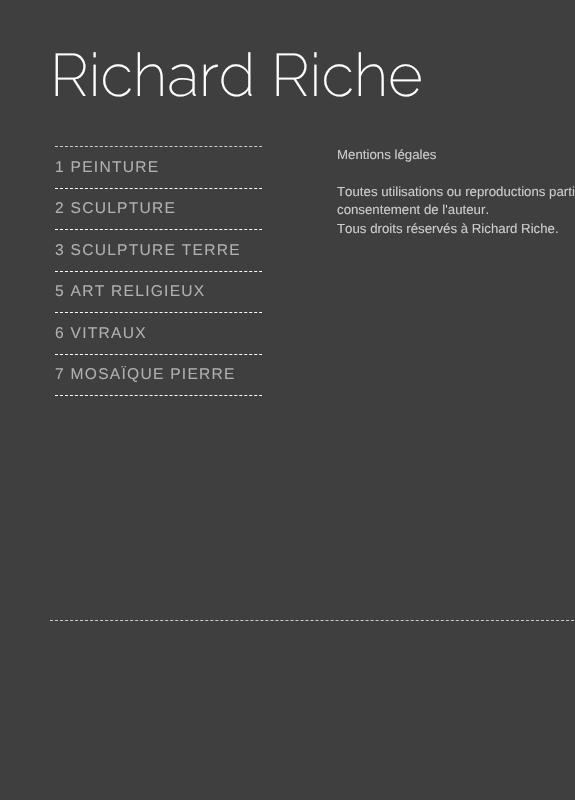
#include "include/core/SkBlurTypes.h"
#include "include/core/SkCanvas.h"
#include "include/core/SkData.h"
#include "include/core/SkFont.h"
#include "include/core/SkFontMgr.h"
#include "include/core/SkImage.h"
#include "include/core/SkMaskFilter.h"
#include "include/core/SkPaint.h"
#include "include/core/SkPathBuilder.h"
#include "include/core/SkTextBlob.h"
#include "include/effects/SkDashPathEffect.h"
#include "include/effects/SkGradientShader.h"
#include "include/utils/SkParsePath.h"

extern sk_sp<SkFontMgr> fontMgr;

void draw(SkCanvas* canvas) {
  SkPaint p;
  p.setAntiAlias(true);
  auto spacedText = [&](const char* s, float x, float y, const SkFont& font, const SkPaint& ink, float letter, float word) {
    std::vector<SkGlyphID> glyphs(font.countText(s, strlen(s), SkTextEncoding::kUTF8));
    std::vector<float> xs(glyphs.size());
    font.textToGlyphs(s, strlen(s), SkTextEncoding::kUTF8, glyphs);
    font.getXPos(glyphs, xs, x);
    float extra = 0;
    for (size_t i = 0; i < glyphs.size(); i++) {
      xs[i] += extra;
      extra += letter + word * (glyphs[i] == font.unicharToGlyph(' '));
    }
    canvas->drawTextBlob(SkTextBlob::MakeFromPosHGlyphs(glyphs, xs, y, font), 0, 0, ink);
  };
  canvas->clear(SkColorSetRGB(63, 63, 63));
  p.setStyle(SkPaint::kStroke_Style);
  p.setStrokeWidth(1);
  p.setColor(SkColorSetRGB(204, 204, 204));
  p.setPathEffect(SkDashPathEffect::Make({{3, 1.98f}}, 0));
  canvas->drawPath(SkPathBuilder().moveTo(55, 146.5f).lineTo(262, 146.5f).detach(), p);
  p.setPathEffect(nullptr);
  p.setColor(SK_ColorWHITE);
  p.setPathEffect(SkDashPathEffect::Make({{3, 1.98f}}, 0));
  canvas->drawPath(SkPathBuilder().moveTo(55, 188.5f).lineTo(262, 188.5f).detach(), p);
  p.setPathEffect(nullptr);
  p.setPathEffect(SkDashPathEffect::Make({{3, 1.98f}}, 0));
  canvas->drawPath(SkPathBuilder().moveTo(55, 229.5f).lineTo(262, 229.5f).detach(), p);
  p.setPathEffect(nullptr);
  p.setPathEffect(SkDashPathEffect::Make({{3, 1.98f}}, 0));
  canvas->drawPath(SkPathBuilder().moveTo(55, 271.5f).lineTo(262, 271.5f).detach(), p);
  p.setPathEffect(nullptr);
  p.setPathEffect(SkDashPathEffect::Make({{3, 1.98f}}, 0));
  canvas->drawPath(SkPathBuilder().moveTo(55, 312.5f).lineTo(262, 312.5f).detach(), p);
  p.setPathEffect(nullptr);
  p.setPathEffect(SkDashPathEffect::Make({{3, 1.98f}}, 0));
  canvas->drawPath(SkPathBuilder().moveTo(55, 354.5f).lineTo(262, 354.5f).detach(), p);
  p.setPathEffect(nullptr);
  p.setPathEffect(SkDashPathEffect::Make({{3, 1.98f}}, 0));
  canvas->drawPath(SkPathBuilder().moveTo(55, 395.5f).lineTo(262, 395.5f).detach(), p);
  p.setPathEffect(nullptr);
  p.setColor(SkColorSetRGB(204, 204, 204));
  p.setPathEffect(SkDashPathEffect::Make({{3, 2.01f}}, 0));
  canvas->drawPath(SkPathBuilder().moveTo(50, 620.5f).lineTo(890, 620.5f).detach(), p);
  p.setPathEffect(nullptr);
  SkFont font1(fontMgr->matchFamilyStyle("Raleway", SkFontStyle(200, SkFontStyle::kNormal_Width, SkFontStyle::kUpright_Slant)), 60);
  font1.setSubpixel(true);
  p.setStyle(SkPaint::kFill_Style);
  p.setColor(SK_ColorWHITE);
  canvas->drawString("Richard Riche", 50, 96, font1, p);
  SkFont font2(fontMgr->matchFamilyStyle("Liberation Sans", SkFontStyle::Normal()), 15.6f);
  font2.setSubpixel(true);
  p.setColor(SkColorSetRGB(176, 176, 176));
  spacedText("1 PEINTURE", 55, 172, font2, p, 1.25f, 0);
  spacedText("2 SCULPTURE", 55, 213, font2, p, 1.25f, 0);
  spacedText("3 SCULPTURE TERRE", 55, 255, font2, p, 1.25f, 0);
  spacedText("5 ART RELIGIEUX", 55, 296, font2, p, 1.25f, 0);
  spacedText("6 VITRAUX", 55, 338, font2, p, 1.25f, 0);
  spacedText("7 MOSAÏQUE PIERRE", 55, 379, font2, p, 1.25f, 0);
  SkFont font3(fontMgr->matchFamilyStyle("Liberation Sans", SkFontStyle::Normal()), 13.25f);
  font3.setSubpixel(true);
  p.setColor(SkColorSetRGB(204, 204, 204));
  canvas->drawString("Mentions légales", 337, 159, font3, p);
  canvas->drawString("Toutes utilisations ou reproductions parti", 337, 196, font3, p);
  canvas->drawString("consentement de l'auteur.", 337, 214, font3, p);
  canvas->drawString("Tous droits réservés à Richard Riche.", 337, 233, font3, p);
}
